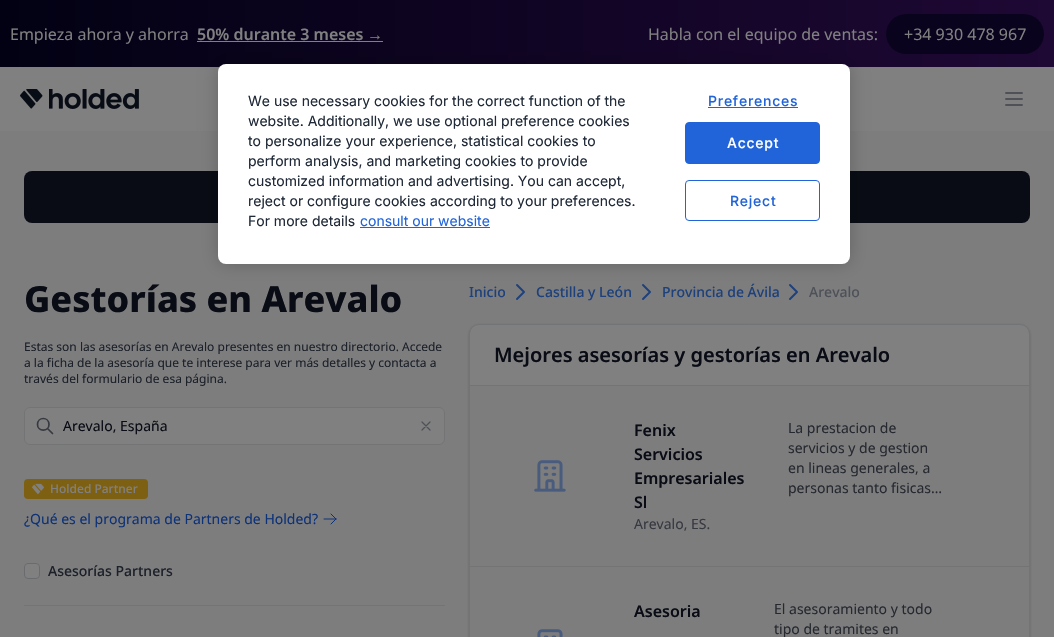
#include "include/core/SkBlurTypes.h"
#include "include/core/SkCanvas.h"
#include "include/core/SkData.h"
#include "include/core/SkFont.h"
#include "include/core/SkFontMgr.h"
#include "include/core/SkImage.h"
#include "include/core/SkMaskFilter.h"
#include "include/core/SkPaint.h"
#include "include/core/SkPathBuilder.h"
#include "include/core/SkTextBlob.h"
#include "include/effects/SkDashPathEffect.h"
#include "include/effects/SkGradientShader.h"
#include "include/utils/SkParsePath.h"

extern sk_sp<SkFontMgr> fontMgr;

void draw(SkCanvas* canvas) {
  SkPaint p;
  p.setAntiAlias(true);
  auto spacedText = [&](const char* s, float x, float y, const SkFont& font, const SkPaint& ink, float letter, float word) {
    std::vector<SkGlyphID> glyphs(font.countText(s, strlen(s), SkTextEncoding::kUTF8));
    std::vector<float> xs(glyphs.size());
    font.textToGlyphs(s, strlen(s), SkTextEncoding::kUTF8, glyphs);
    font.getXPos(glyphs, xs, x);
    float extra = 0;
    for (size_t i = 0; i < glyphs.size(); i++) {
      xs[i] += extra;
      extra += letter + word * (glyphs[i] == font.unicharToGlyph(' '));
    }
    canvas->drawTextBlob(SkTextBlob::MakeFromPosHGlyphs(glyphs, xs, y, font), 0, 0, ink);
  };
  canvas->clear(SkColorSetRGB(128, 128, 128));
  {
    const SkColor colors[] = {SkColorSetRGB(2, 1, 19), SkColorSetRGB(30, 8, 52)};
    const float stops[] = {0, 1};
    const SkPoint ends[] = {{0, 34}, {1054, 33}};
    p.setShader(SkGradientShader::MakeLinear(ends, colors, stops, 2, SkTileMode::kClamp));
    p.setAlpha(255);
  }
  canvas->drawRect(SkRect::MakeLTRB(0, 0, 1054, 67), p);
  p.setShader(nullptr);
  p.setColor(SkColorSetRGB(128, 128, 128));
  canvas->drawRect(SkRect::MakeLTRB(197, 41, 383, 42), p);
  p.setColor(SkColorSetRGB(10, 3, 29));
  canvas->drawRoundRect(SkRect::MakeLTRB(886, 14, 1044, 54), 20, 20, p);
  canvas->drawImageRect(SkImages::DeferredFromEncodedData(SkData::MakeFromFileName("images/1.png")), SkRect::MakeLTRB(20, 89, 139, 109), SkSamplingOptions());
  p.setStyle(SkPaint::kStroke_Style);
  p.setStrokeWidth(2);
  p.setStrokeCap(SkPaint::kRound_Cap);
  p.setStrokeJoin(SkPaint::kRound_Join);
  p.setColor(SkColorSetRGB(78, 82, 88));
  canvas->drawPath(SkPathBuilder().moveTo(1006, 93).lineTo(1022, 93).moveTo(1006, 99).lineTo(1022, 99).moveTo(1006, 105).lineTo(1022, 105).detach(), p);
  p.setStyle(SkPaint::kFill_Style);
  p.setColor(SkColorSetRGB(125, 125, 126));
  canvas->drawRect(SkRect::MakeLTRB(0, 131, 1054, 637), p);
  p.setColor(SkColorSetRGB(9, 12, 20));
  canvas->drawRoundRect(SkRect::MakeLTRB(24, 171, 1030, 223), 8, 8, p);
  p.setColor(SkColorSetRGB(128, 128, 128));
  canvas->drawRoundRect(SkRect::MakeLTRB(24.5f, 407.5f, 444.5f, 444.5f), 5.5f, 5.5f, p);
  p.setStyle(SkPaint::kStroke_Style);
  p.setStrokeWidth(1);
  p.setStrokeCap(SkPaint::kButt_Cap);
  p.setStrokeJoin(SkPaint::kMiter_Join);
  p.setColor(SkColorSetRGB(115, 116, 118));
  canvas->drawRoundRect(SkRect::MakeLTRB(24.5f, 407.5f, 444.5f, 444.5f), 5.5f, 5.5f, p);
  p.setStrokeWidth(1.7f);
  p.setStrokeCap(SkPaint::kRound_Cap);
  p.setStrokeJoin(SkPaint::kRound_Join);
  p.setColor(SkColorSetRGB(54, 57, 64));
  canvas->drawPath(SkPathBuilder().moveTo(52.5f, 433.5f).lineTo(47.5f, 428.5f).moveTo(49, 424.5f).cubicTo(49, 432, 37.5f, 432, 37.5f, 424.5f).cubicTo(37.5f, 416.5f, 49, 416.5f, 49, 424.5f).close().detach(), p);
  p.setStrokeWidth(1.3f);
  p.setColor(SkColorSetRGB(78, 82, 88));
  canvas->drawPath(SkPathBuilder().moveTo(422, 430).lineTo(430, 422).moveTo(422, 422).lineTo(430, 430).detach(), p);
  p.setStyle(SkPaint::kFill_Style);
  p.setColor(SkColorSetRGB(126, 96, 18));
  canvas->drawRoundRect(SkRect::MakeLTRB(24, 479, 148, 499), 4, 4, p);
  canvas->drawImageRect(SkImages::DeferredFromEncodedData(SkData::MakeFromFileName("images/2.png")), SkRect::MakeLTRB(32, 483, 44, 495), SkSamplingOptions());
  p.setStyle(SkPaint::kStroke_Style);
  p.setStrokeWidth(1);
  p.setColor(SkColorSetRGB(13, 50, 120));
  canvas->drawPath(SkPathBuilder().moveTo(331, 514).lineTo(336, 519).moveTo(336, 519).lineTo(331, 524).moveTo(336, 519).lineTo(324, 519).detach(), p);
  p.setStyle(SkPaint::kFill_Style);
  p.setColor(SkColorSetRGB(128, 128, 128));
  canvas->drawRoundRect(SkRect::MakeLTRB(24.5f, 563.5f, 39.5f, 578.5f), 3.5f, 3.5f, p);
  p.setStyle(SkPaint::kStroke_Style);
  p.setStrokeCap(SkPaint::kButt_Cap);
  p.setStrokeJoin(SkPaint::kMiter_Join);
  p.setColor(SkColorSetRGB(105, 107, 110));
  canvas->drawRoundRect(SkRect::MakeLTRB(24.5f, 563.5f, 39.5f, 578.5f), 3.5f, 3.5f, p);
  p.setStyle(SkPaint::kFill_Style);
  p.setColor(SkColorSetRGB(115, 116, 118));
  canvas->drawRect(SkRect::MakeLTRB(24, 605, 445, 606), p);
  p.setStyle(SkPaint::kStroke_Style);
  p.setStrokeWidth(2);
  p.setStrokeCap(SkPaint::kRound_Cap);
  p.setStrokeJoin(SkPaint::kRound_Join);
  p.setColor(SkColorSetRGB(30, 65, 123));
  canvas->drawPath(SkPathBuilder().moveTo(517, 285).lineTo(524, 292).lineTo(517, 299).detach(), p);
  canvas->drawPath(SkPathBuilder().moveTo(643, 285).lineTo(650, 292).lineTo(643, 299).detach(), p);
  canvas->drawPath(SkPathBuilder().moveTo(790, 285).lineTo(797, 292).lineTo(790, 299).detach(), p);
  p.setStyle(SkPaint::kFill_Style);
  p.setColor(SkColorSetARGB(26, 0, 0, 0));
  p.setMaskFilter(SkMaskFilter::MakeBlur(kNormal_SkBlurStyle, 1));
  canvas->drawRoundRect(SkRect::MakeLTRB(469, 325, 1030, 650), 10, 10, p);
  p.setMaskFilter(nullptr);
  p.setMaskFilter(SkMaskFilter::MakeBlur(kNormal_SkBlurStyle, 1.5f));
  canvas->drawRoundRect(SkRect::MakeLTRB(469, 325, 1030, 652), 10, 10, p);
  p.setMaskFilter(nullptr);
  p.setColor(SkColorSetRGB(128, 128, 128));
  canvas->drawRoundRect(SkRect::MakeLTRB(469.5f, 324.5f, 1029.5f, 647.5f), 9.5f, 9.5f, p);
  p.setStyle(SkPaint::kStroke_Style);
  p.setStrokeWidth(1);
  p.setStrokeCap(SkPaint::kButt_Cap);
  p.setStrokeJoin(SkPaint::kMiter_Join);
  p.setColor(SkColorSetRGB(115, 116, 118));
  canvas->drawRoundRect(SkRect::MakeLTRB(469.5f, 324.5f, 1029.5f, 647.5f), 9.5f, 9.5f, p);
  p.setStyle(SkPaint::kFill_Style);
  canvas->drawRect(SkRect::MakeLTRB(470, 385, 1029, 386), p);
  p.setColor(SkColorSetRGB(125, 125, 126));
  canvas->drawRect(SkRect::MakeLTRB(470, 386, 1029, 566), p);
  p.setColor(SkColorSetRGB(115, 116, 118));
  canvas->drawRect(SkRect::MakeLTRB(470, 566, 1029, 567), p);
  canvas->drawImageRect(SkImages::DeferredFromEncodedData(SkData::MakeFromFileName("images/3.png")), SkRect::MakeLTRB(534, 460, 566, 492), SkSamplingOptions());
  p.setColor(SkColorSetRGB(125, 125, 126));
  canvas->drawRect(SkRect::MakeLTRB(470, 567, 1029, 637), p);
  canvas->drawImageRect(SkImages::DeferredFromEncodedData(SkData::MakeFromFileName("images/4.png")), SkRect::MakeLTRB(537, 629, 563, 637), SkSamplingOptions());
  p.setColor(SkColorSetARGB(51, 0, 0, 0));
  p.setMaskFilter(SkMaskFilter::MakeBlur(kNormal_SkBlurStyle, 9));
  canvas->drawRoundRect(SkRect::MakeLTRB(218, 64, 850, 264), 8, 8, p);
  p.setMaskFilter(nullptr);
  p.setColor(SK_ColorWHITE);
  canvas->drawRoundRect(SkRect::MakeLTRB(218, 64, 850, 264), 8, 8, p);
  p.setColor(SkColorSetRGB(33, 100, 217));
  canvas->drawRect(SkRect::MakeLTRB(360, 227, 490, 228), p);
  canvas->drawRect(SkRect::MakeLTRB(708, 107, 798, 108), p);
  canvas->drawRoundRect(SkRect::MakeLTRB(685.5f, 122.5f, 819.5f, 163.5f), 3.5f, 3.5f, p);
  p.setStyle(SkPaint::kStroke_Style);
  canvas->drawRoundRect(SkRect::MakeLTRB(685.5f, 122.5f, 819.5f, 163.5f), 3.5f, 3.5f, p);
  canvas->drawRoundRect(SkRect::MakeLTRB(685.5f, 180.5f, 819.5f, 220.5f), 3.5f, 3.5f, p);
  SkFont font1(fontMgr->matchFamilyStyle("Noto Sans", SkFontStyle::Normal()), 16);
  font1.setSubpixel(true);
  p.setStyle(SkPaint::kFill_Style);
  p.setColor(SkColorSetRGB(128, 128, 128));
  canvas->drawString("Empieza ahora y ahorra", 10, 40, font1, p);
  SkFont font2(fontMgr->matchFamilyStyle("Noto Sans", SkFontStyle(600, SkFontStyle::kNormal_Width, SkFontStyle::kUpright_Slant)), 16);
  font2.setSubpixel(true);
  canvas->drawString("50% durante 3 meses", 197, 40, font2, p);
  SkFont font3(fontMgr->matchFamilyStyle("Liberation Sans", SkFontStyle::Bold()), 16);
  font3.setSubpixel(true);
  canvas->drawString("→", 367, 40, font3, p);
  canvas->drawString("Habla con el equipo de ventas:", 648, 40, font1, p);
  canvas->drawString("+34 930 478 967", 904, 40, font1, p);
  SkFont font4(fontMgr->matchFamilyStyle("Noto Sans", SkFontStyle(800, SkFontStyle::kNormal_Width, SkFontStyle::kUpright_Slant)), 36);
  font4.setSubpixel(true);
  p.setColor(SkColorSetRGB(9, 12, 20));
  canvas->drawString("Gestorías en Arevalo", 24, 312, font4, p);
  SkFont font5(fontMgr->matchFamilyStyle("Noto Sans", SkFontStyle::Normal()), 12);
  font5.setSubpixel(true);
  p.setColor(SkColorSetRGB(28, 33, 41));
  canvas->drawString("Estas son las asesorías en Arevalo presentes en nuestro directorio. Accede", 24, 351, font5, p);
  canvas->drawString("a la ficha de la asesoría que te interese para ver más detalles y contacta a", 24, 367, font5, p);
  canvas->drawString("través del formulario de esa página.", 24, 383, font5, p);
  SkFont font6(fontMgr->matchFamilyStyle("Noto Sans", SkFontStyle::Normal()), 14);
  font6.setSubpixel(true);
  p.setColor(SkColorSetRGB(9, 12, 20));
  canvas->drawString("Arevalo, España", 63, 431, font6, p);
  SkFont font7(fontMgr->matchFamilyStyle("Noto Sans", SkFontStyle(500, SkFontStyle::kNormal_Width, SkFontStyle::kUpright_Slant)), 12);
  font7.setSubpixel(true);
  p.setColor(SkColorSetRGB(128, 128, 128));
  canvas->drawString("Holded Partner", 50, 493, font7, p);
  p.setColor(SkColorSetRGB(13, 50, 120));
  canvas->drawString("¿Qué es el programa de Partners de Holded?", 24, 524, font6, p);
  SkFont font8(fontMgr->matchFamilyStyle("Noto Sans", SkFontStyle(500, SkFontStyle::kNormal_Width, SkFontStyle::kUpright_Slant)), 14);
  font8.setSubpixel(true);
  p.setColor(SkColorSetRGB(28, 33, 41));
  canvas->drawString("Asesorías Partners", 48, 576, font8, p);
  p.setColor(SkColorSetRGB(30, 65, 123));
  canvas->drawString("Inicio", 469, 297, font8, p);
  canvas->drawString("Castilla y León", 536, 297, font8, p);
  canvas->drawString("Provincia de Ávila", 662, 297, font8, p);
  p.setColor(SkColorSetRGB(78, 82, 88));
  canvas->drawString("Arevalo", 809, 297, font8, p);
  SkFont font9(fontMgr->matchFamilyStyle("Noto Sans", SkFontStyle(600, SkFontStyle::kNormal_Width, SkFontStyle::kUpright_Slant)), 20);
  font9.setSubpixel(true);
  p.setColor(SkColorSetRGB(9, 12, 20));
  canvas->drawString("Mejores asesorías y gestorías en Arevalo", 494, 362, font9, p);
  canvas->drawString("Fenix", 634, 436, font2, p);
  canvas->drawString("Servicios", 634, 460, font2, p);
  canvas->drawString("Empresariales", 634, 484, font2, p);
  canvas->drawString("Sl", 634, 508, font2, p);
  p.setColor(SkColorSetRGB(54, 57, 64));
  canvas->drawString("Arevalo, ES.", 634, 529, font6, p);
  p.setColor(SkColorSetRGB(38, 42, 48));
  canvas->drawString("La prestacion de", 788, 433, font6, p);
  canvas->drawString("servicios y de gestion", 788, 453, font6, p);
  canvas->drawString("en lineas generales, a", 788, 473, font6, p);
  canvas->drawString("personas tanto fisicas…", 788, 493, font6, p);
  p.setColor(SkColorSetRGB(9, 12, 20));
  canvas->drawString("Asesoria", 634, 617, font2, p);
  p.setColor(SkColorSetRGB(38, 42, 48));
  canvas->drawString("El asesoramiento y todo", 774, 614, font6, p);
  canvas->drawString("tipo de tramites en", 774, 634, font6, p);
  SkFont font10(fontMgr->matchFamilyStyle("Inter", SkFontStyle::Normal()), 14);
  font10.setSubpixel(true);
  p.setColor(SkColorSetRGB(31, 41, 55));
  canvas->drawString("We use necessary cookies for the correct function of the", 248, 106, font10, p);
  canvas->drawString("website. Additionally, we use optional preference cookies", 248, 126, font10, p);
  canvas->drawString("to personalize your experience, statistical cookies to", 248, 146, font10, p);
  canvas->drawString("perform analysis, and marketing cookies to provide", 248, 166, font10, p);
  canvas->drawString("customized information and advertising. You can accept,", 248, 186, font10, p);
  canvas->drawString("reject or configure cookies according to your preferences.", 248, 206, font10, p);
  canvas->drawString("For more details", 248, 226, font10, p);
  p.setColor(SkColorSetRGB(33, 100, 217));
  canvas->drawString("consult our website", 360, 226, font10, p);
  SkFont font11(fontMgr->matchFamilyStyle("Inter", SkFontStyle(500, SkFontStyle::kNormal_Width, SkFontStyle::kUpright_Slant)), 14);
  font11.setSubpixel(true);
  spacedText("Preferences", 708, 106, font11, p, 0.75f, 0);
  p.setColor(SK_ColorWHITE);
  spacedText("Accept", 727, 148, font11, p, 0.75f, 0);
  p.setColor(SkColorSetRGB(33, 100, 217));
  spacedText("Reject", 730, 206, font11, p, 0.75f, 0);
}
